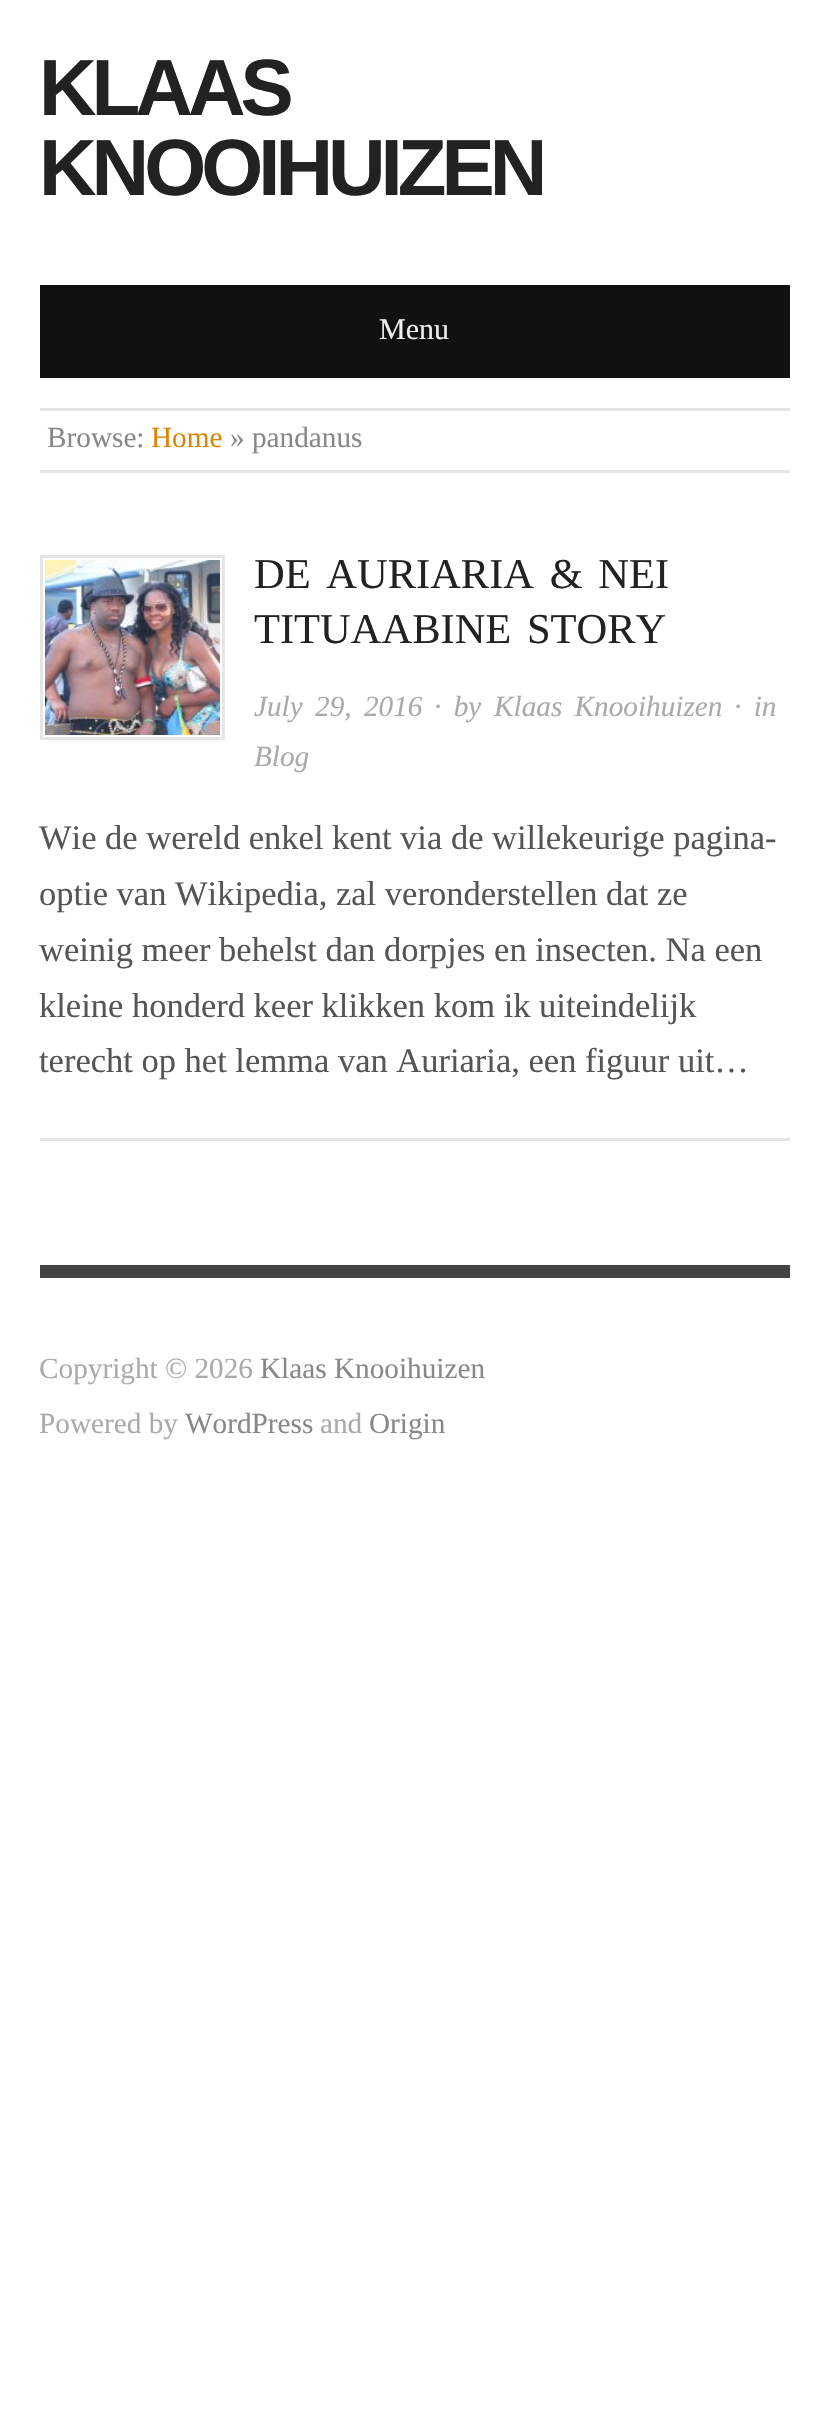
#include "include/core/SkBlurTypes.h"
#include "include/core/SkCanvas.h"
#include "include/core/SkData.h"
#include "include/core/SkFont.h"
#include "include/core/SkFontMgr.h"
#include "include/core/SkImage.h"
#include "include/core/SkMaskFilter.h"
#include "include/core/SkPaint.h"
#include "include/core/SkPathBuilder.h"
#include "include/core/SkTextBlob.h"
#include "include/effects/SkDashPathEffect.h"
#include "include/effects/SkGradientShader.h"
#include "include/utils/SkParsePath.h"

extern sk_sp<SkFontMgr> fontMgr;

void draw(SkCanvas* canvas) {
  SkPaint p;
  p.setAntiAlias(true);
  auto spacedText = [&](const char* s, float x, float y, const SkFont& font, const SkPaint& ink, float letter, float word) {
    std::vector<SkGlyphID> glyphs(font.countText(s, strlen(s), SkTextEncoding::kUTF8));
    std::vector<float> xs(glyphs.size());
    font.textToGlyphs(s, strlen(s), SkTextEncoding::kUTF8, glyphs);
    font.getXPos(glyphs, xs, x);
    float extra = 0;
    for (size_t i = 0; i < glyphs.size(); i++) {
      xs[i] += extra;
      extra += letter + word * (glyphs[i] == font.unicharToGlyph(' '));
    }
    canvas->drawTextBlob(SkTextBlob::MakeFromPosHGlyphs(glyphs, xs, y, font), 0, 0, ink);
  };
  canvas->clear(SK_ColorWHITE);
  p.setColor(SkColorSetRGB(17, 17, 17));
  canvas->drawRect(SkRect::MakeLTRB(40, 285, 790, 378), p);
  p.setColor(SkColorSetRGB(229, 229, 229));
  canvas->drawRect(SkRect::MakeLTRB(40, 408, 790, 411), p);
  canvas->drawRect(SkRect::MakeLTRB(40, 470, 790, 473), p);
  canvas->drawRect(SkRect::MakeLTRB(40, 1138, 790, 1141), p);
  p.setStyle(SkPaint::kStroke_Style);
  p.setStrokeWidth(3);
  canvas->drawRect(SkRect::MakeLTRB(41.5f, 556.5f, 223.5f, 738.5f), p);
  canvas->drawImageRect(SkImages::DeferredFromEncodedData(SkData::MakeFromFileName("images/1.png")), SkRect::MakeLTRB(45, 560, 220, 735), SkSamplingOptions());
  p.setStyle(SkPaint::kFill_Style);
  p.setColor(SkColorSetRGB(68, 68, 68));
  canvas->drawRect(SkRect::MakeLTRB(40, 1265, 790, 1278), p);
  SkFont font1(fontMgr->matchFamilyStyle("Liberation Sans", SkFontStyle::Bold()), 79.75f);
  font1.setSubpixel(true);
  p.setColor(SkColorSetRGB(34, 34, 34));
  spacedText("KLAAS", 39, 115, font1, p, -5, 0);
  spacedText("KNOOIHUIZEN", 39, 195, font1, p, -5, 0);
  SkFont font2(fontMgr->matchFamilyStyle("Liberation Serif", SkFontStyle::Normal()), 30);
  font2.setSubpixel(true);
  p.setColor(SkColorSetRGB(238, 238, 238));
  canvas->drawString("Menu", 379, 339, font2, p);
  SkFont font3(fontMgr->matchFamilyStyle("Liberation Serif", SkFontStyle::Normal()), 29.25f);
  font3.setSubpixel(true);
  p.setColor(SkColorSetRGB(136, 136, 136));
  canvas->drawString("Browse:", 47, 447, font3, p);
  p.setColor(SkColorSetRGB(221, 133, 2));
  canvas->drawString("Home", 151, 447, font3, p);
  p.setColor(SkColorSetRGB(136, 136, 136));
  canvas->drawString("» pandanus", 230, 447, font3, p);
  SkFont font4(fontMgr->matchFamilyStyle("Liberation Serif", SkFontStyle::Normal()), 42.5f);
  font4.setSubpixel(true);
  p.setColor(SkColorSetRGB(34, 34, 34));
  spacedText("DE AURIARIA & NEI", 254, 588, font4, p, 0, 5);
  spacedText("TITUAABINE STORY", 254, 643, font4, p, 0, 5);
  SkFont font5(fontMgr->matchFamilyStyle("Liberation Serif", SkFontStyle::Italic()), 29.25f);
  font5.setSubpixel(true);
  p.setColor(SkColorSetRGB(170, 170, 170));
  spacedText("July 29, 2016", 254, 716, font5, p, 0, 5);
  spacedText("· by", 434, 716, font5, p, 0, 5);
  spacedText("Klaas Knooihuizen", 494, 716, font5, p, 0, 5);
  spacedText("· in", 734, 716, font5, p, 0, 5);
  canvas->drawString("Blog", 254, 766, font5, p);
  SkFont font6(fontMgr->matchFamilyStyle("Liberation Serif", SkFontStyle::Normal()), 34.5f);
  font6.setSubpixel(true);
  p.setColor(SkColorSetRGB(85, 85, 85));
  canvas->drawString("Wie de wereld enkel kent via de willekeurige pagina-", 39, 849, font6, p);
  canvas->drawString("optie van Wikipedia, zal veronderstellen dat ze", 39, 905, font6, p);
  canvas->drawString("weinig meer behelst dan dorpjes en insecten. Na een", 39, 961, font6, p);
  canvas->drawString("kleine honderd keer klikken kom ik uiteindelijk", 39, 1017, font6, p);
  canvas->drawString("terecht op het lemma van Auriaria, een figuur uit…", 39, 1072, font6, p);
  p.setColor(SkColorSetRGB(170, 170, 170));
  canvas->drawString("Copyright © 2026", 39, 1378, font3, p);
  p.setColor(SkColorSetRGB(136, 136, 136));
  canvas->drawString("Klaas Knooihuizen", 260, 1378, font3, p);
  p.setColor(SkColorSetRGB(170, 170, 170));
  canvas->drawString("Powered by", 39, 1433, font3, p);
  p.setColor(SkColorSetRGB(136, 136, 136));
  canvas->drawString("WordPress", 185, 1433, font3, p);
  p.setColor(SkColorSetRGB(170, 170, 170));
  canvas->drawString("and", 320, 1433, font3, p);
  p.setColor(SkColorSetRGB(136, 136, 136));
  canvas->drawString("Origin", 369, 1433, font3, p);
}
